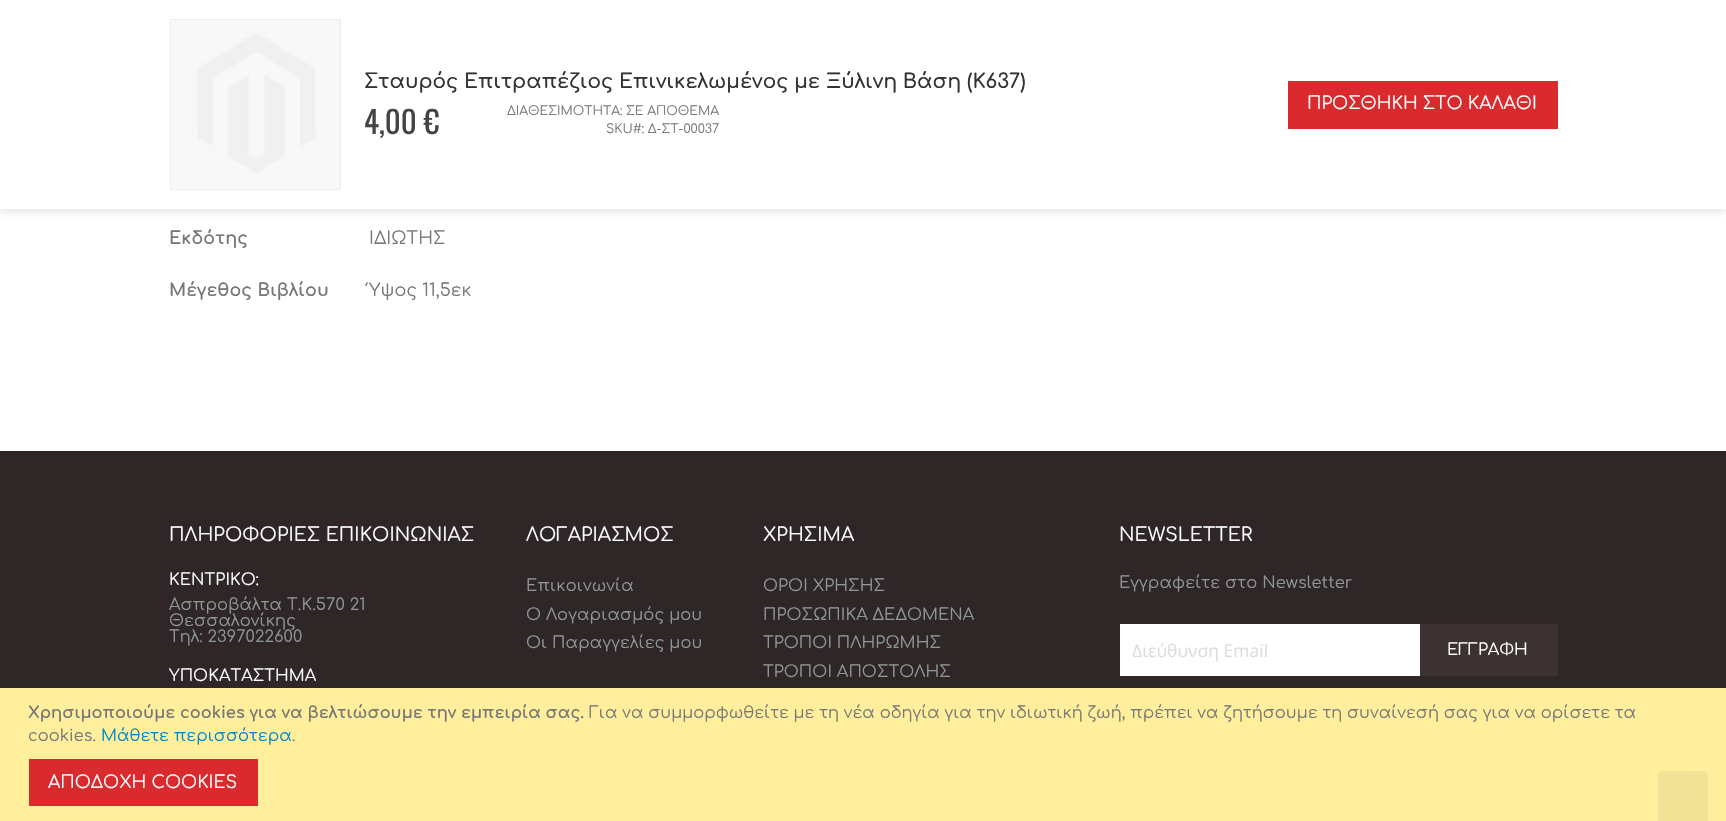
#include "include/core/SkBlurTypes.h"
#include "include/core/SkCanvas.h"
#include "include/core/SkData.h"
#include "include/core/SkFont.h"
#include "include/core/SkFontMgr.h"
#include "include/core/SkImage.h"
#include "include/core/SkMaskFilter.h"
#include "include/core/SkPaint.h"
#include "include/core/SkPathBuilder.h"
#include "include/core/SkTextBlob.h"
#include "include/effects/SkDashPathEffect.h"
#include "include/effects/SkGradientShader.h"
#include "include/utils/SkParsePath.h"

extern sk_sp<SkFontMgr> fontMgr;

void draw(SkCanvas* canvas) {
  SkPaint p;
  p.setAntiAlias(true);
  auto spacedText = [&](const char* s, float x, float y, const SkFont& font, const SkPaint& ink, float letter, float word) {
    std::vector<SkGlyphID> glyphs(font.countText(s, strlen(s), SkTextEncoding::kUTF8));
    std::vector<float> xs(glyphs.size());
    font.textToGlyphs(s, strlen(s), SkTextEncoding::kUTF8, glyphs);
    font.getXPos(glyphs, xs, x);
    float extra = 0;
    for (size_t i = 0; i < glyphs.size(); i++) {
      xs[i] += extra;
      extra += letter + word * (glyphs[i] == font.unicharToGlyph(' '));
    }
    canvas->drawTextBlob(SkTextBlob::MakeFromPosHGlyphs(glyphs, xs, y, font), 0, 0, ink);
  };
  canvas->clear(SK_ColorWHITE);
  p.setColor(SkColorSetARGB(20, 0, 0, 0));
  p.setMaskFilter(SkMaskFilter::MakeBlur(kNormal_SkBlurStyle, 3));
  canvas->drawRect(SkRect::MakeLTRB(0, 4, 1726, 213), p);
  p.setMaskFilter(nullptr);
  p.setColor(SK_ColorWHITE);
  canvas->drawRect(SkRect::MakeLTRB(0, 1, 1726, 209), p);
  p.setStyle(SkPaint::kStroke_Style);
  p.setStrokeWidth(1);
  p.setColor(SkColorSetRGB(236, 236, 236));
  canvas->drawRect(SkRect::MakeLTRB(170.5f, 19.5f, 340.5f, 189.5f), p);
  canvas->drawImageRect(SkImages::DeferredFromEncodedData(SkData::MakeFromFileName("images/1.png")), SkRect::MakeLTRB(171, 20, 340, 189), SkSamplingOptions());
  p.setStyle(SkPaint::kFill_Style);
  p.setColor(SkColorSetRGB(217, 42, 46));
  canvas->drawRect(SkRect::MakeLTRB(1288, 81, 1558, 129), p);
  p.setColor(SkColorSetRGB(47, 39, 39));
  canvas->drawRect(SkRect::MakeLTRB(0, 451, 1726, 688), p);
  p.setColor(SK_ColorWHITE);
  canvas->drawRect(SkRect::MakeLTRB(1120, 624, 1420, 676), p);
  p.setColor(SkColorSetRGB(60, 50, 50));
  canvas->drawRect(SkRect::MakeLTRB(1420, 624, 1558, 676), p);
  p.setColor(SkColorSetRGB(255, 238, 156));
  canvas->drawRect(SkRect::MakeLTRB(0, 688, 1726, 821), p);
  p.setColor(SkColorSetRGB(242, 226, 150));
  canvas->drawPath(SkPathBuilder().moveTo(1664, 771).lineTo(1702, 771).cubicTo(1705.5f, 771, 1708, 773.5f, 1708, 777).lineTo(1708, 821).lineTo(1658, 821).lineTo(1658, 777).cubicTo(1658, 773.5f, 1660.5f, 771, 1664, 771).close().detach(), p);
  canvas->drawImageRect(SkImages::DeferredFromEncodedData(SkData::MakeFromFileName("images/2.png")), SkRect::MakeLTRB(1676, 792, 1688, 799), SkSamplingOptions());
  p.setColor(SkColorSetRGB(217, 42, 46));
  canvas->drawRect(SkRect::MakeLTRB(29, 759, 258, 806), p);
  SkFont font1(fontMgr->matchFamilyStyle("Comfortaa", SkFontStyle(600, SkFontStyle::kNormal_Width, SkFontStyle::kUpright_Slant)), 20);
  font1.setSubpixel(true);
  p.setColor(SkColorSetRGB(51, 51, 51));
  canvas->drawString("Σταυρός Επιτραπέζιος Επινικελωμένος με Ξύλινη Βάση (Κ637)", 364, 88, font1, p);
  SkFont font2(fontMgr->matchFamilyStyle("Oswald", SkFontStyle::Normal()), 31);
  font2.setSubpixel(true);
  p.setColor(SkColorSetRGB(68, 68, 68));
  canvas->drawString("4,00 €", 364, 134, font2, p);
  SkFont font3(fontMgr->matchFamilyStyle("Comfortaa", SkFontStyle::Normal()), 12.5f);
  font3.setSubpixel(true);
  p.setColor(SkColorSetRGB(119, 119, 119));
  canvas->drawString("ΔΙΑΘΕΣΙΜΟΤΗΤΑ: ΣΕ ΑΠΟΘΕΜΑ", 507, 115, font3, p);
  canvas->drawString("SKU#: Δ-ΣΤ-00037", 606, 133, font3, p);
  SkFont font4(fontMgr->matchFamilyStyle("Comfortaa", SkFontStyle::Normal()), 17.5f);
  font4.setSubpixel(true);
  p.setColor(SK_ColorWHITE);
  canvas->drawString("ΠΡΟΣΘΗΚΗ ΣΤΟ ΚΑΛΑΘΙ", 1307, 109, font4, p);
  SkFont font5(fontMgr->matchFamilyStyle("Comfortaa", SkFontStyle::Bold()), 17.5f);
  font5.setSubpixel(true);
  p.setColor(SkColorSetRGB(119, 119, 119));
  spacedText("Εκδότης", 169, 244, font5, p, 0.1f, 0);
  spacedText("ΙΔΙΩΤΗΣ", 369, 244, font4, p, 0.1f, 0);
  spacedText("Μέγεθος Βιβλίου", 169, 296, font5, p, 0.1f, 0);
  spacedText("Ύψος 11,5εκ", 369, 296, font4, p, 0.1f, 0);
  SkFont font6(fontMgr->matchFamilyStyle("Comfortaa", SkFontStyle::Normal()), 18.75f);
  font6.setSubpixel(true);
  p.setColor(SK_ColorWHITE);
  spacedText("ΠΛΗΡΟΦΟΡΙΕΣ ΕΠΙΚΟΙΝΩΝΙΑΣ", 169, 541, font6, p, 0.1f, 0);
  SkFont font7(fontMgr->matchFamilyStyle("Comfortaa", SkFontStyle::Normal()), 16.25f);
  font7.setSubpixel(true);
  spacedText("ΚΕΝΤΡΙΚΟ:", 169, 585, font7, p, 0.1f, 0);
  p.setColor(SkColorSetRGB(144, 150, 154));
  spacedText("Ασπροβάλτα Τ.Κ.570 21", 169, 610, font7, p, 0.1f, 0);
  spacedText("Θεσσαλονίκης", 169, 626, font7, p, 0.1f, 0);
  spacedText("Τηλ: 2397022600", 169, 642, font7, p, 0.1f, 0);
  p.setColor(SK_ColorWHITE);
  spacedText("ΥΠΟΚΑΤΑΣΤΗΜΑ", 169, 681, font7, p, 0.1f, 0);
  spacedText("ΛΟΓΑΡΙΑΣΜΟΣ", 526, 541, font6, p, 0.1f, 0);
  p.setColor(SkColorSetRGB(144, 150, 154));
  spacedText("Επικοινωνία", 526, 591, font7, p, 0.1f, 0);
  spacedText("Ο Λογαριασμός μου", 526, 620, font7, p, 0.1f, 0);
  spacedText("Οι Παραγγελίες μου", 526, 648, font7, p, 0.1f, 0);
  p.setColor(SK_ColorWHITE);
  spacedText("ΧΡΗΣΙΜΑ", 763, 541, font6, p, 0.1f, 0);
  p.setColor(SkColorSetRGB(144, 150, 154));
  spacedText("ΟΡΟΙ ΧΡΗΣΗΣ", 763, 591, font7, p, 0.1f, 0);
  spacedText("ΠΡΟΣΩΠΙΚΑ ΔΕΔΟΜΕΝΑ", 763, 620, font7, p, 0.1f, 0);
  spacedText("ΤΡΟΠΟΙ ΠΛΗΡΩΜΗΣ", 763, 648, font7, p, 0.1f, 0);
  spacedText("ΤΡΟΠΟΙ ΑΠΟΣΤΟΛΗΣ", 763, 677, font7, p, 0.1f, 0);
  p.setColor(SK_ColorWHITE);
  spacedText("NEWSLETTER", 1119, 541, font6, p, 0.1f, 0);
  p.setColor(SkColorSetRGB(144, 150, 154));
  spacedText("Εγγραφείτε στο Newsletter", 1119, 588, font7, p, 0.1f, 0);
  canvas->save();
  canvas->clipRect(SkRect::MakeLTRB(1133, 639, 1408, 663));
  SkFont font8(fontMgr->matchFamilyStyle("Open Sans", SkFontStyle::Normal()), 17.5f);
  font8.setSubpixel(true);
  p.setColor(SkColorSetRGB(221, 221, 221));
  canvas->drawString("Διεύθυνση Email", 1132, 657, font8, p);
  canvas->restore();
  p.setColor(SK_ColorWHITE);
  canvas->drawString("ΕΓΓΡΑΦΗ", 1447, 655, font7, p);
  SkFont font9(fontMgr->matchFamilyStyle("Comfortaa", SkFontStyle::Bold()), 16.25f);
  font9.setSubpixel(true);
  p.setColor(SkColorSetRGB(119, 119, 119));
  canvas->drawString("Χρησιμοποιούμε cookies για να βελτιώσουμε την εμπειρία σας.", 28, 718, font9, p);
  canvas->drawString("Για να συμμορφωθείτε με τη νέα οδηγία για την ιδιωτική ζωή, πρέπει να ζητήσουμε τη συναίνεσή σας για να ορίσετε τα", 589, 718, font7, p);
  canvas->drawString("cookies.", 28, 741, font7, p);
  p.setColor(SkColorSetRGB(0, 136, 204));
  canvas->drawString("Μάθετε περισσότερα", 101, 741, font7, p);
  p.setColor(SkColorSetRGB(119, 119, 119));
  canvas->drawString(".", 292, 741, font7, p);
  p.setColor(SK_ColorWHITE);
  canvas->drawString("ΑΠΟΔΟΧΗ COOKIES", 48, 788, font4, p);
}
